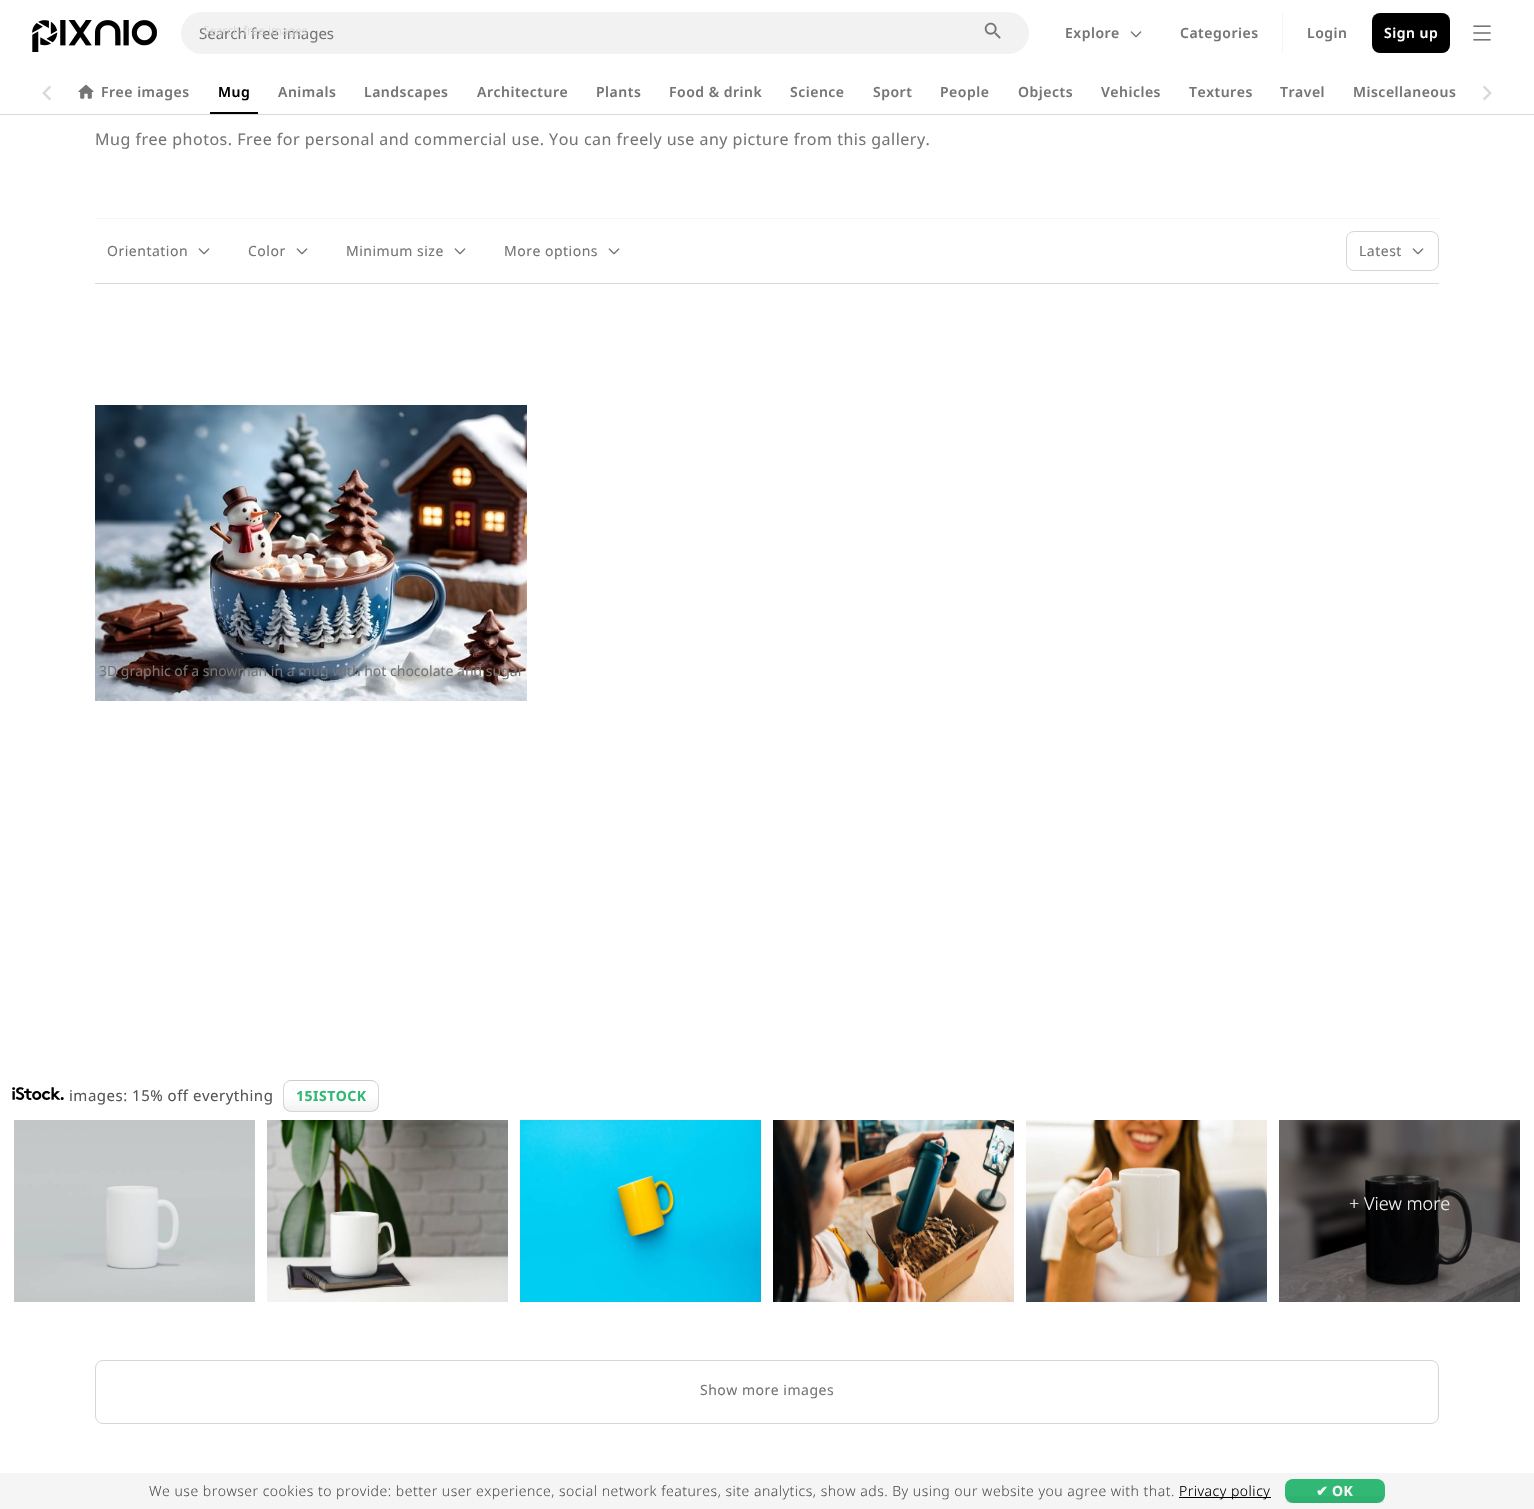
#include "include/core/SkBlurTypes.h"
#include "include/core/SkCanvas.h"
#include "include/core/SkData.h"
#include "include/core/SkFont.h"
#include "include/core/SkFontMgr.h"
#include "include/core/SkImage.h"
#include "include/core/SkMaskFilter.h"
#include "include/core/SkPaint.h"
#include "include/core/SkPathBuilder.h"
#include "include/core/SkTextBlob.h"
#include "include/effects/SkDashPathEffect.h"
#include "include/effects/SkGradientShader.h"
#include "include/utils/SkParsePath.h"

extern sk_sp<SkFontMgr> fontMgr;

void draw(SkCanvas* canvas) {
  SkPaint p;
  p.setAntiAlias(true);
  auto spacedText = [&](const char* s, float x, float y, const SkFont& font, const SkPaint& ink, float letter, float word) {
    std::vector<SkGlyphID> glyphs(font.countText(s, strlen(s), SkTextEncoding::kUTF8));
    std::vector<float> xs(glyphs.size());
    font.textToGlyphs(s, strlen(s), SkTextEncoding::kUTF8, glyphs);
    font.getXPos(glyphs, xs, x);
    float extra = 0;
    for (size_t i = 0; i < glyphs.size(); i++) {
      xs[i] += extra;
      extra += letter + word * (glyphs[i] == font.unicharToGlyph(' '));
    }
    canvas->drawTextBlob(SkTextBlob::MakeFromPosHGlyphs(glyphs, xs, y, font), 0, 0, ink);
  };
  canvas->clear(SK_ColorWHITE);
  p.setColor(SkColorSetRGB(217, 217, 217));
  canvas->drawRect(SkRect::MakeLTRB(0, 114, 1534, 115), p);
  canvas->drawImageRect(SkImages::DeferredFromEncodedData(SkData::MakeFromFileName("images/1.png")), SkRect::MakeLTRB(32, 20, 157, 52), SkSamplingOptions());
  p.setColor(SkColorSetRGB(242, 242, 242));
  canvas->drawRoundRect(SkRect::MakeLTRB(181, 12, 1029, 54), 21, 21, p);
  canvas->drawImageRect(SkImages::DeferredFromEncodedData(SkData::MakeFromFileName("images/2.png")), SkRect::MakeLTRB(984, 22, 1001, 39), SkSamplingOptions());
  canvas->drawImageRect(SkImages::DeferredFromEncodedData(SkData::MakeFromFileName("images/3.png")), SkRect::MakeLTRB(1130, 31, 1142, 38), SkSamplingOptions());
  p.setColor(SkColorSetRGB(245, 245, 245));
  canvas->drawRect(SkRect::MakeLTRB(1282, 13, 1283, 53), p);
  p.setColor(SK_ColorBLACK);
  canvas->drawRoundRect(SkRect::MakeLTRB(1372, 13, 1450, 53), 8, 8, p);
  canvas->drawImageRect(SkImages::DeferredFromEncodedData(SkData::MakeFromFileName("images/4.png")), SkRect::MakeLTRB(1473, 25, 1491, 41), SkSamplingOptions());
  canvas->drawImageRect(SkImages::DeferredFromEncodedData(SkData::MakeFromFileName("images/5.png")), SkRect::MakeLTRB(42, 85, 51, 101), SkSamplingOptions());
  canvas->drawImageRect(SkImages::DeferredFromEncodedData(SkData::MakeFromFileName("images/6.png")), SkRect::MakeLTRB(78, 84, 94, 99), SkSamplingOptions());
  canvas->drawRect(SkRect::MakeLTRB(210, 112, 258, 114), p);
  canvas->drawImageRect(SkImages::DeferredFromEncodedData(SkData::MakeFromFileName("images/7.png")), SkRect::MakeLTRB(1483, 85, 1492, 101), SkSamplingOptions());
  p.setColor(SkColorSetRGB(245, 245, 245));
  canvas->drawRect(SkRect::MakeLTRB(95, 218, 1439, 219), p);
  p.setColor(SkColorSetRGB(217, 217, 217));
  canvas->drawRect(SkRect::MakeLTRB(95, 283, 1439, 284), p);
  canvas->drawImageRect(SkImages::DeferredFromEncodedData(SkData::MakeFromFileName("images/3.png")), SkRect::MakeLTRB(198, 248, 210, 255), SkSamplingOptions());
  canvas->drawImageRect(SkImages::DeferredFromEncodedData(SkData::MakeFromFileName("images/3.png")), SkRect::MakeLTRB(296, 248, 308, 255), SkSamplingOptions());
  canvas->drawImageRect(SkImages::DeferredFromEncodedData(SkData::MakeFromFileName("images/3.png")), SkRect::MakeLTRB(454, 248, 466, 255), SkSamplingOptions());
  canvas->drawImageRect(SkImages::DeferredFromEncodedData(SkData::MakeFromFileName("images/3.png")), SkRect::MakeLTRB(608, 248, 620, 255), SkSamplingOptions());
  p.setStyle(SkPaint::kStroke_Style);
  p.setStrokeWidth(1);
  p.setColor(SkColorSetRGB(214, 214, 214));
  canvas->drawRoundRect(SkRect::MakeLTRB(1346.5f, 231.5f, 1438.5f, 270.5f), 7.5f, 7.5f, p);
  canvas->drawImageRect(SkImages::DeferredFromEncodedData(SkData::MakeFromFileName("images/3.png")), SkRect::MakeLTRB(1412, 248, 1424, 255), SkSamplingOptions());
  canvas->drawImageRect(SkImages::DeferredFromEncodedData(SkData::MakeFromFileName("images/8.png")), SkRect::MakeLTRB(95, 405, 527, 701), SkSamplingOptions());
  canvas->drawImageRect(SkImages::DeferredFromEncodedData(SkData::MakeFromFileName("images/9.png")), SkRect::MakeLTRB(12, 1087, 64, 1100), SkSamplingOptions());
  canvas->save();
  canvas->clipPath(SkPathBuilder().moveTo(291, 1080).lineTo(371, 1080).cubicTo(375.5f, 1080, 379, 1083.5f, 379, 1088).lineTo(379, 1104).cubicTo(379, 1108.5f, 375.5f, 1112, 371, 1112).lineTo(291, 1112).cubicTo(286.5f, 1112, 283, 1108.5f, 283, 1104).lineTo(283, 1088).cubicTo(283, 1083.5f, 286.5f, 1080, 291, 1080).close().detach(), true);
  p.setStyle(SkPaint::kFill_Style);
  {
    const SkColor colors[] = {SK_ColorWHITE, SkColorSetRGB(242, 242, 242)};
    const float stops[] = {0.5f, 1};
    const SkPoint ends[] = {{331, 1051}, {331, 1081}};
    p.setShader(SkGradientShader::MakeLinear(ends, colors, stops, 2, SkTileMode::kClamp));
    p.setAlpha(255);
  }
  canvas->drawRect(SkRect::MakeLTRB(283, 1080, 379, 1081), p);
  {
    const SkColor colors[] = {SK_ColorWHITE, SkColorSetRGB(242, 242, 242)};
    const float stops[] = {0.5f, 1};
    const SkPoint ends[] = {{331, 1081}, {331, 1111}};
    p.setShader(SkGradientShader::MakeLinear(ends, colors, stops, 2, SkTileMode::kClamp));
    p.setAlpha(255);
  }
  canvas->drawRect(SkRect::MakeLTRB(283, 1081, 379, 1111), p);
  canvas->restore();
  p.setStyle(SkPaint::kStroke_Style);
  p.setShader(nullptr);
  p.setColor(SkColorSetARGB(41, 0, 0, 0));
  canvas->drawRoundRect(SkRect::MakeLTRB(283.5f, 1080.5f, 378.5f, 1111.5f), 7.5f, 7.5f, p);
  canvas->drawImageRect(SkImages::DeferredFromEncodedData(SkData::MakeFromFileName("images/10.png")), SkRect::MakeLTRB(14, 1120, 255, 1302), SkSamplingOptions());
  canvas->drawImageRect(SkImages::DeferredFromEncodedData(SkData::MakeFromFileName("images/11.png")), SkRect::MakeLTRB(267, 1120, 508, 1302), SkSamplingOptions());
  canvas->drawImageRect(SkImages::DeferredFromEncodedData(SkData::MakeFromFileName("images/12.png")), SkRect::MakeLTRB(520, 1120, 761, 1302), SkSamplingOptions());
  canvas->drawImageRect(SkImages::DeferredFromEncodedData(SkData::MakeFromFileName("images/13.png")), SkRect::MakeLTRB(773, 1120, 1014, 1302), SkSamplingOptions());
  canvas->drawImageRect(SkImages::DeferredFromEncodedData(SkData::MakeFromFileName("images/14.png")), SkRect::MakeLTRB(1026, 1120, 1267, 1302), SkSamplingOptions());
  canvas->drawImageRect(SkImages::DeferredFromEncodedData(SkData::MakeFromFileName("images/15.png")), SkRect::MakeLTRB(1279, 1120, 1520, 1302), SkSamplingOptions());
  p.setColor(SkColorSetRGB(214, 214, 214));
  canvas->drawRoundRect(SkRect::MakeLTRB(95.5f, 1360.5f, 1438.5f, 1423.5f), 7.5f, 7.5f, p);
  p.setStyle(SkPaint::kFill_Style);
  p.setColor(SkColorSetRGB(245, 245, 245));
  canvas->drawRect(SkRect::MakeLTRB(0, 1473, 1534, 1509), p);
  p.setColor(SK_ColorBLACK);
  canvas->drawRect(SkRect::MakeLTRB(1179, 1497, 1271, 1498), p);
  p.setColor(SkColorSetRGB(48, 184, 116));
  canvas->drawRoundRect(SkRect::MakeLTRB(1285, 1479, 1385, 1503), 8, 8, p);
  {
    const SkColor colors[] = {SkColorSetARGB(0, 0, 0, 0), SkColorSetARGB(13, 0, 0, 0)};
    const float stops[] = {0.5f, 1};
    const SkPoint ends[] = {{1335, 1479}, {1335, 1503}};
    p.setShader(SkGradientShader::MakeLinear(ends, colors, stops, 2, SkTileMode::kClamp));
    p.setAlpha(255);
  }
  canvas->drawRect(SkRect::MakeLTRB(1286, 1496, 1384, 1503), p);
  SkFont font1(fontMgr->matchFamilyStyle("Noto Sans", SkFontStyle::Normal()), 15);
  font1.setSubpixel(true);
  p.setShader(nullptr);
  p.setColor(SkColorSetRGB(117, 117, 117));
  canvas->drawString("Search free images", 199, 39, font1, p);
  SkFont font2(fontMgr->matchFamilyStyle("Noto Sans", SkFontStyle(300, SkFontStyle::kNormal_Width, SkFontStyle::kUpright_Slant)), 12);
  font2.setSubpixel(true);
  p.setColor(SkColorSetRGB(212, 212, 212));
  canvas->drawString("Search free images", 203, 35, font2, p);
  SkFont font3(fontMgr->matchFamilyStyle("Noto Sans", SkFontStyle(600, SkFontStyle::kNormal_Width, SkFontStyle::kUpright_Slant)), 14);
  font3.setSubpixel(true);
  p.setColor(SkColorSetRGB(117, 117, 117));
  spacedText("Explore", 1065, 38, font3, p, 0.5f, 0);
  spacedText("Categories", 1180, 38, font3, p, 0.5f, 0);
  spacedText("Login", 1307, 38, font3, p, 0.5f, 0);
  p.setColor(SK_ColorWHITE);
  spacedText("Sign up", 1384, 38, font3, p, 0.5f, 0);
  p.setColor(SkColorSetRGB(117, 117, 117));
  spacedText("Free images", 101, 97, font3, p, 0.5f, 0);
  p.setColor(SK_ColorBLACK);
  spacedText("Mug", 218, 97, font3, p, 0.5f, 0);
  p.setColor(SkColorSetRGB(117, 117, 117));
  spacedText("Animals", 278, 97, font3, p, 0.5f, 0);
  spacedText("Landscapes", 364, 97, font3, p, 0.5f, 0);
  spacedText("Architecture", 477, 97, font3, p, 0.5f, 0);
  spacedText("Plants", 596, 97, font3, p, 0.5f, 0);
  spacedText("Food & drink", 669, 97, font3, p, 0.5f, 0);
  spacedText("Science", 790, 97, font3, p, 0.5f, 0);
  spacedText("Sport", 873, 97, font3, p, 0.5f, 0);
  spacedText("People", 940, 97, font3, p, 0.5f, 0);
  spacedText("Objects", 1018, 97, font3, p, 0.5f, 0);
  spacedText("Vehicles", 1101, 97, font3, p, 0.5f, 0);
  spacedText("Textures", 1189, 97, font3, p, 0.5f, 0);
  spacedText("Travel", 1280, 97, font3, p, 0.5f, 0);
  spacedText("Miscellaneous", 1353, 97, font3, p, 0.5f, 0);
  SkFont font4(fontMgr->matchFamilyStyle("Noto Sans", SkFontStyle::Normal()), 16);
  font4.setSubpixel(true);
  spacedText("Mug free photos. Free for personal and commercial use. You can freely use any picture from this gallery.", 95, 145, font4, p, 0.5f, 0);
  SkFont font5(fontMgr->matchFamilyStyle("Noto Sans", SkFontStyle::Normal()), 14);
  font5.setSubpixel(true);
  spacedText("Orientation", 107, 256, font5, p, 0.5f, 0);
  spacedText("Color", 248, 256, font5, p, 0.5f, 0);
  spacedText("Minimum size", 346, 256, font5, p, 0.5f, 0);
  spacedText("More options", 504, 256, font5, p, 0.5f, 0);
  spacedText("Latest", 1359, 256, font5, p, 0.5f, 0);
  canvas->drawString("3D graphic of a snowman in a mug with hot chocolate and sugar", 99, 676, font5, p);
  p.setColor(SkColorSetRGB(85, 85, 85));
  spacedText("images: 15% off everything", 69, 1101, font1, p, 0.5f, 0);
  SkFont font6(fontMgr->matchFamilyStyle("Noto Sans", SkFontStyle::Bold()), 14);
  font6.setSubpixel(true);
  p.setColor(SkColorSetRGB(48, 184, 116));
  spacedText("15ISTOCK", 296, 1101, font6, p, 0.5f, 0);
  SkFont font7(fontMgr->matchFamilyStyle("Noto Sans", SkFontStyle(300, SkFontStyle::kNormal_Width, SkFontStyle::kUpright_Slant)), 18);
  font7.setSubpixel(true);
  p.setColor(SkColorSetRGB(245, 245, 245));
  canvas->drawString("+ View more", 1349, 1210, font7, p);
  p.setColor(SkColorSetRGB(117, 117, 117));
  spacedText("Show more images", 700, 1395, font5, p, 0.5f, 0);
  SkFont font8(fontMgr->matchFamilyStyle("Noto Sans", SkFontStyle(300, SkFontStyle::kNormal_Width, SkFontStyle::kUpright_Slant)), 14);
  font8.setSubpixel(true);
  p.setColor(SkColorSetRGB(85, 85, 85));
  spacedText("We use browser cookies to provide: better user experience, social network features, site analytics, show ads. By using our website you agree with that.", 149, 1496, font8, p, 0.5f, 0);
  p.setColor(SK_ColorBLACK);
  spacedText("Privacy policy", 1179, 1496, font8, p, 0.5f, 0);
  SkFont font9(fontMgr->matchFamilyStyle("DejaVu Sans", SkFontStyle::Bold()), 14);
  font9.setSubpixel(true);
  p.setColor(SkColorSetRGB(245, 245, 245));
  spacedText("✔", 1316, 1496, font9, p, 0.5f, 0);
  spacedText("OK", 1332, 1496, font6, p, 0.5f, 0);
}
